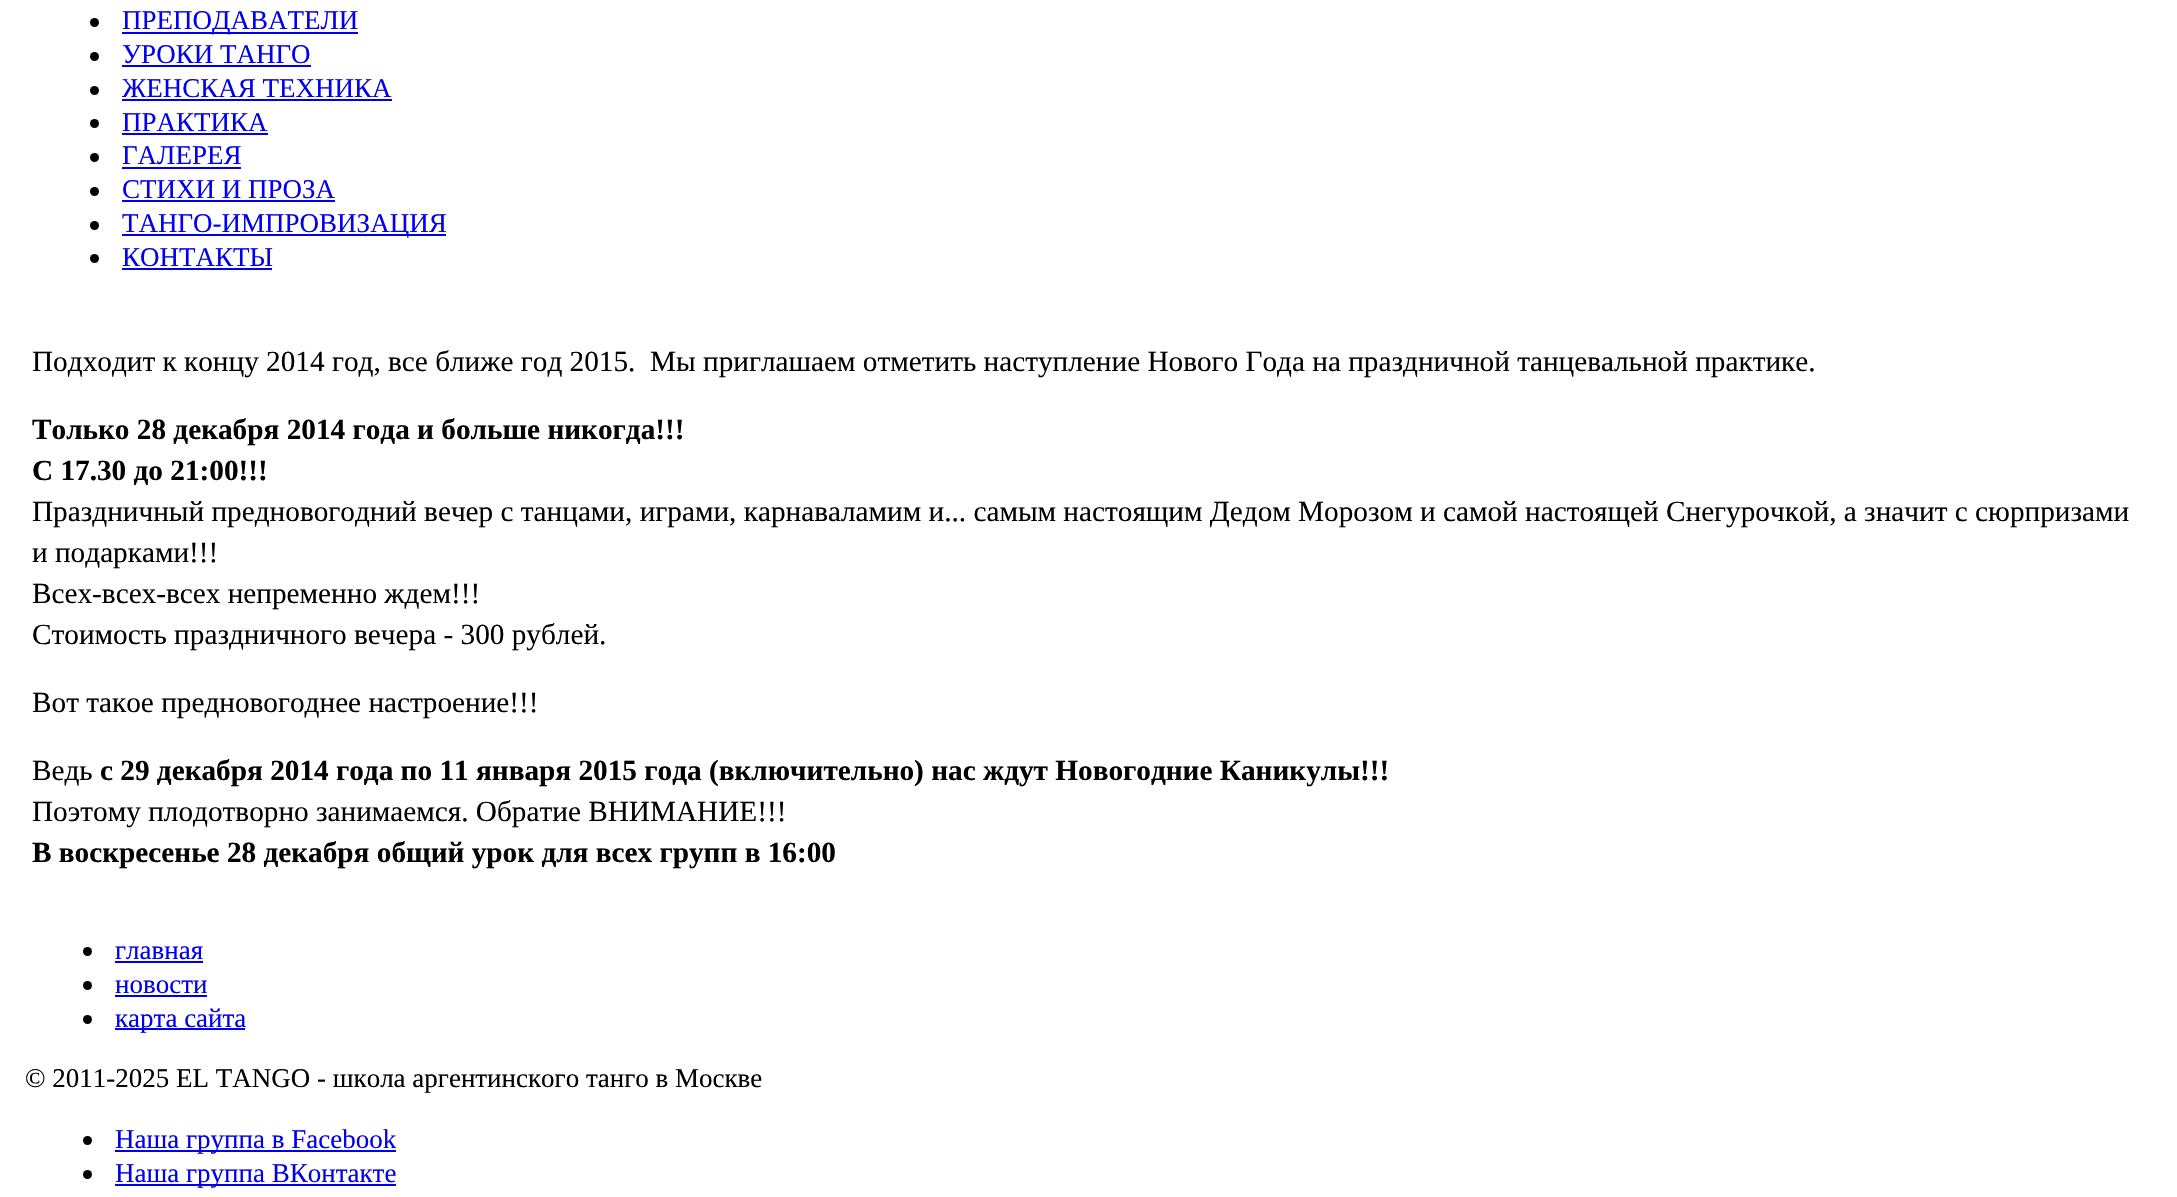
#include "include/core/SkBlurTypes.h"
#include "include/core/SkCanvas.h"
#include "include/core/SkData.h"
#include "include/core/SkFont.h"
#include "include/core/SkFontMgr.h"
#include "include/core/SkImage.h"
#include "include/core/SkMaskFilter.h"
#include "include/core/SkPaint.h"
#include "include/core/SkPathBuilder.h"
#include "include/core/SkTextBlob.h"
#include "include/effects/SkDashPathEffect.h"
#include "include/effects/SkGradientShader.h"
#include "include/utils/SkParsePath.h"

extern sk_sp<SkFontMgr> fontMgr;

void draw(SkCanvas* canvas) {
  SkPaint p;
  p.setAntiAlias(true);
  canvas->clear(SK_ColorWHITE);
  p.setColor(SK_ColorBLACK);
  canvas->drawCircle(94.5f, 22.5f, 4.5f, p);
  p.setColor(SkColorSetRGB(0, 0, 238));
  canvas->drawRect(SkRect::MakeLTRB(122, 32, 358, 34), p);
  p.setColor(SK_ColorBLACK);
  canvas->drawCircle(94.5f, 56.5f, 4.5f, p);
  p.setColor(SkColorSetRGB(0, 0, 238));
  canvas->drawRect(SkRect::MakeLTRB(122, 65, 311, 67), p);
  p.setColor(SK_ColorBLACK);
  canvas->drawCircle(94.5f, 90.5f, 4.5f, p);
  p.setColor(SkColorSetRGB(0, 0, 238));
  canvas->drawRect(SkRect::MakeLTRB(122, 99, 392, 101), p);
  p.setColor(SK_ColorBLACK);
  canvas->drawCircle(94.5f, 123.5f, 4.5f, p);
  p.setColor(SkColorSetRGB(0, 0, 238));
  canvas->drawRect(SkRect::MakeLTRB(122, 133, 268, 135), p);
  p.setColor(SK_ColorBLACK);
  canvas->drawCircle(94.5f, 157.5f, 4.5f, p);
  p.setColor(SkColorSetRGB(0, 0, 238));
  canvas->drawRect(SkRect::MakeLTRB(122, 167, 241, 169), p);
  p.setColor(SK_ColorBLACK);
  canvas->drawCircle(94.5f, 191.5f, 4.5f, p);
  p.setColor(SkColorSetRGB(0, 0, 238));
  canvas->drawRect(SkRect::MakeLTRB(122, 200, 335, 202), p);
  p.setColor(SK_ColorBLACK);
  canvas->drawCircle(94.5f, 225.5f, 4.5f, p);
  p.setColor(SkColorSetRGB(0, 0, 238));
  canvas->drawRect(SkRect::MakeLTRB(122, 234, 446, 236), p);
  p.setColor(SK_ColorBLACK);
  canvas->drawCircle(94.5f, 258.5f, 4.5f, p);
  p.setColor(SkColorSetRGB(0, 0, 238));
  canvas->drawRect(SkRect::MakeLTRB(122, 268, 272, 270), p);
  p.setColor(SK_ColorBLACK);
  canvas->drawCircle(87.5f, 951.5f, 4.5f, p);
  p.setColor(SkColorSetRGB(0, 0, 238));
  canvas->drawRect(SkRect::MakeLTRB(115, 961, 203, 963), p);
  p.setColor(SK_ColorBLACK);
  canvas->drawCircle(87.5f, 985.5f, 4.5f, p);
  p.setColor(SkColorSetRGB(0, 0, 238));
  canvas->drawRect(SkRect::MakeLTRB(115, 995, 207, 997), p);
  p.setColor(SK_ColorBLACK);
  canvas->drawCircle(87.5f, 1019.5f, 4.5f, p);
  p.setColor(SkColorSetRGB(0, 0, 238));
  canvas->drawRect(SkRect::MakeLTRB(115, 1028, 245, 1030), p);
  p.setColor(SK_ColorBLACK);
  canvas->drawCircle(87.5f, 1140.5f, 4.5f, p);
  p.setColor(SkColorSetRGB(0, 0, 238));
  canvas->drawRect(SkRect::MakeLTRB(115, 1150, 396, 1152), p);
  p.setColor(SK_ColorBLACK);
  canvas->drawCircle(87.5f, 1174.5f, 4.5f, p);
  p.setColor(SkColorSetRGB(0, 0, 238));
  canvas->drawRect(SkRect::MakeLTRB(115, 1184, 396, 1186), p);
  SkFont font1(fontMgr->matchFamilyStyle("Liberation Serif", SkFontStyle::Normal()), 27);
  font1.setSubpixel(true);
  canvas->drawString("ПРЕПОДАВАТЕЛИ", 122, 29, font1, p);
  canvas->drawString("УРОКИ ТАНГО", 122, 63, font1, p);
  canvas->drawString("ЖЕНСКАЯ ТЕХНИКА", 122, 97, font1, p);
  canvas->drawString("ПРАКТИКА", 122, 131, font1, p);
  canvas->drawString("ГАЛЕРЕЯ", 122, 164, font1, p);
  canvas->drawString("СТИХИ И ПРОЗА", 122, 198, font1, p);
  canvas->drawString("ТАНГО-ИМПРОВИЗАЦИЯ", 122, 232, font1, p);
  canvas->drawString("КОНТАКТЫ", 122, 266, font1, p);
  SkFont font2(fontMgr->matchFamilyStyle("Liberation Serif", SkFontStyle::Normal()), 29.25f);
  font2.setSubpixel(true);
  p.setColor(SK_ColorBLACK);
  canvas->drawString("Подходит к концу 2014 год, все ближе год 2015.", 32, 371, font2, p);
  canvas->drawString("Мы приглашаем отметить наступление Нового Года на праздничной танцевальной практикe.", 650, 371, font2, p);
  SkFont font3(fontMgr->matchFamilyStyle("Liberation Serif", SkFontStyle::Bold()), 29.25f);
  font3.setSubpixel(true);
  canvas->drawString("Только 28 декабря 2014 года и больше никогда!!!", 32, 439, font3, p);
  canvas->drawString("С 17.30 до 21:00!!!", 32, 480, font3, p);
  canvas->drawString("Праздничный предновогодний вечер с танцами, играми, карнаваламим и... самым настоящим Дедом Морозом и самой настоящей Снегурочкой, а значит с сюрпризами", 32, 521, font2, p);
  canvas->drawString("и подарками!!!", 32, 562, font2, p);
  canvas->drawString("Всех-всех-всех непременно ждем!!!", 32, 603, font2, p);
  canvas->drawString("Стоимость праздничного вечера - 300 рублей.", 32, 644, font2, p);
  canvas->drawString("Вот такое предновогоднее настроение!!!", 32, 712, font2, p);
  canvas->drawString("Ведь", 32, 780, font2, p);
  canvas->drawString("с 29 декабря 2014 года по 11 января 2015 года (включительно) нас ждут Новогодние Каникулы!!!", 100, 780, font3, p);
  canvas->drawString("Поэтому плодотворно занимаемся. Обратие ВНИМАНИЕ!!!", 32, 821, font2, p);
  canvas->drawString("В воскресенье 28 декабря общий урок для всех групп в 16:00", 32, 862, font3, p);
  p.setColor(SkColorSetRGB(0, 0, 238));
  canvas->drawString("главная", 115, 959, font1, p);
  canvas->drawString("новости", 115, 993, font1, p);
  canvas->drawString("карта сайта", 115, 1027, font1, p);
  p.setColor(SK_ColorBLACK);
  canvas->drawString("© 2011-2025 EL TANGO - школа аргентинского танго в Москве", 25, 1087, font1, p);
  p.setColor(SkColorSetRGB(0, 0, 238));
  canvas->drawString("Наша группа в Facebook", 115, 1148, font1, p);
  canvas->drawString("Наша группа ВКонтакте", 115, 1182, font1, p);
}
